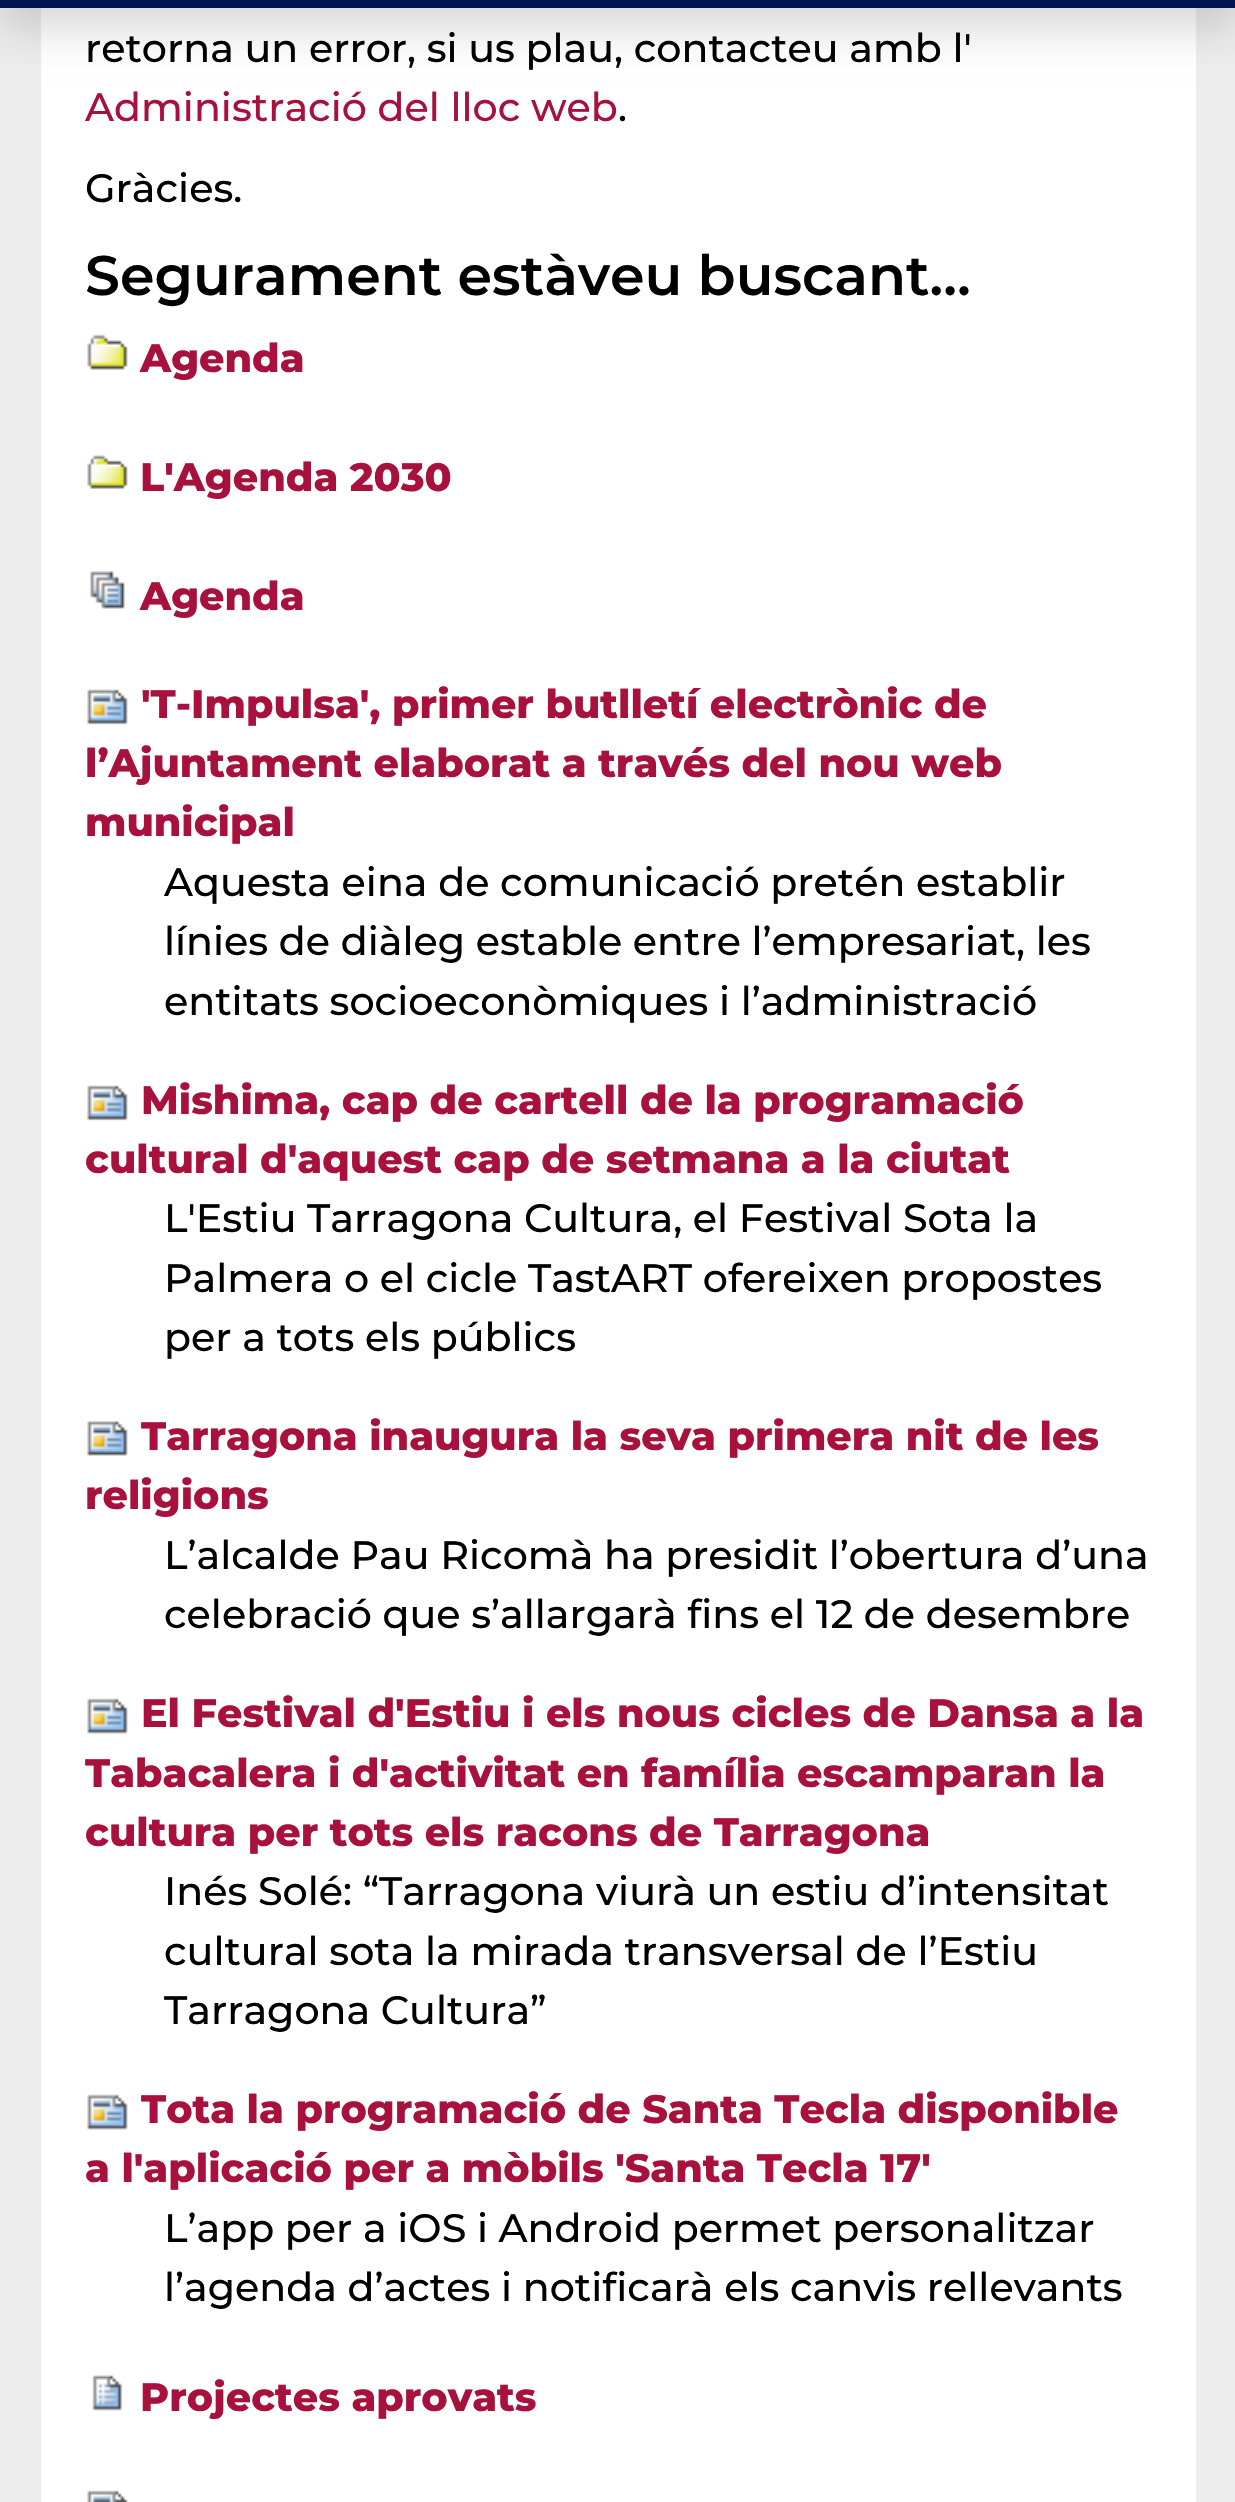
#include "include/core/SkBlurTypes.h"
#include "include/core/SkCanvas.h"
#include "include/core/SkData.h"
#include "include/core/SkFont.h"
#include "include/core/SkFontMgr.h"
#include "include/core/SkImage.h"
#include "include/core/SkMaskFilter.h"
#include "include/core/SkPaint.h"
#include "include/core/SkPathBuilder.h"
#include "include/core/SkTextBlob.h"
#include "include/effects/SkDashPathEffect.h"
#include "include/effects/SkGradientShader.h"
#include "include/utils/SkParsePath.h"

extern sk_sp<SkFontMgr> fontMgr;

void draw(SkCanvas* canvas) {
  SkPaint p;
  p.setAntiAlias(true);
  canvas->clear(SkColorSetRGB(237, 237, 237));
  p.setColor(SK_ColorWHITE);
  canvas->drawRect(SkRect::MakeLTRB(41, 8, 1196, 2502), p);
  p.setColor(SkColorSetARGB(38, 0, 0, 0));
  p.setMaskFilter(SkMaskFilter::MakeBlur(kNormal_SkBlurStyle, 22));
  canvas->drawRect(SkRect::MakeLTRB(0, -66, 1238, 30), p);
  p.setMaskFilter(nullptr);
  p.setColor(SkColorSetRGB(0, 20, 80));
  canvas->drawRect(SkRect::MakeLTRB(0, 0, 1235, 8), p);
  canvas->drawImageRect(SkImages::DeferredFromEncodedData(SkData::MakeFromFileName("images/1.png")), SkRect::MakeLTRB(87, 334, 128, 370), SkSamplingOptions());
  canvas->drawImageRect(SkImages::DeferredFromEncodedData(SkData::MakeFromFileName("images/2.png")), SkRect::MakeLTRB(87, 455, 128, 489), SkSamplingOptions());
  canvas->drawImageRect(SkImages::DeferredFromEncodedData(SkData::MakeFromFileName("images/3.png")), SkRect::MakeLTRB(90, 571, 125, 609), SkSamplingOptions());
  canvas->drawImageRect(SkImages::DeferredFromEncodedData(SkData::MakeFromFileName("images/4.png")), SkRect::MakeLTRB(87, 689, 128, 725), SkSamplingOptions());
  canvas->drawImageRect(SkImages::DeferredFromEncodedData(SkData::MakeFromFileName("images/4.png")), SkRect::MakeLTRB(87, 1085, 128, 1121), SkSamplingOptions());
  canvas->drawImageRect(SkImages::DeferredFromEncodedData(SkData::MakeFromFileName("images/5.png")), SkRect::MakeLTRB(87, 1421, 128, 1456), SkSamplingOptions());
  canvas->drawImageRect(SkImages::DeferredFromEncodedData(SkData::MakeFromFileName("images/6.png")), SkRect::MakeLTRB(87, 1698, 128, 1734), SkSamplingOptions());
  canvas->drawImageRect(SkImages::DeferredFromEncodedData(SkData::MakeFromFileName("images/6.png")), SkRect::MakeLTRB(87, 2094, 128, 2130), SkSamplingOptions());
  canvas->drawImageRect(SkImages::DeferredFromEncodedData(SkData::MakeFromFileName("images/7.png")), SkRect::MakeLTRB(92, 2375, 122, 2411), SkSamplingOptions());
  canvas->drawImageRect(SkImages::DeferredFromEncodedData(SkData::MakeFromFileName("images/8.png")), SkRect::MakeLTRB(87, 2490, 128, 2502), SkSamplingOptions());
  SkFont font1(fontMgr->matchFamilyStyle("Montserrat", SkFontStyle(500, SkFontStyle::kNormal_Width, SkFontStyle::kUpright_Slant)), 39.6f);
  font1.setSubpixel(true);
  p.setColor(SK_ColorBLACK);
  canvas->drawString("retorna un error, si us plau, contacteu amb l'", 85, 62, font1, p);
  p.setColor(SkColorSetRGB(168, 17, 60));
  canvas->drawString("Administració del lloc web", 85, 121, font1, p);
  p.setColor(SK_ColorBLACK);
  canvas->drawString(".", 618, 121, font1, p);
  canvas->drawString("Gràcies.", 85, 202, font1, p);
  SkFont font2(fontMgr->matchFamilyStyle("Montserrat", SkFontStyle(600, SkFontStyle::kNormal_Width, SkFontStyle::kUpright_Slant)), 55.5f);
  font2.setSubpixel(true);
  canvas->drawString("Segurament estàveu buscant…", 85, 295, font2, p);
  SkFont font3(fontMgr->matchFamilyStyle("Montserrat", SkFontStyle(800, SkFontStyle::kNormal_Width, SkFontStyle::kUpright_Slant)), 39.6f);
  font3.setSubpixel(true);
  p.setColor(SkColorSetRGB(168, 17, 60));
  canvas->drawString("Agenda", 140, 372, font3, p);
  canvas->drawString("L'Agenda 2030", 140, 491, font3, p);
  canvas->drawString("Agenda", 140, 610, font3, p);
  canvas->drawString("'T-Impulsa', primer butlletí electrònic de", 141, 718, font3, p);
  canvas->drawString("l’Ajuntament elaborat a través del nou web", 85, 777, font3, p);
  canvas->drawString("municipal", 85, 836, font3, p);
  p.setColor(SK_ColorBLACK);
  canvas->drawString("Aquesta eina de comunicació pretén establir", 164, 896, font1, p);
  canvas->drawString("línies de diàleg estable entre l’empresariat, les", 164, 955, font1, p);
  canvas->drawString("entitats socioeconòmiques i l’administració", 164, 1015, font1, p);
  p.setColor(SkColorSetRGB(168, 17, 60));
  canvas->drawString("Mishima, cap de cartell de la programació", 141, 1114, font3, p);
  canvas->drawString("cultural d'aquest cap de setmana a la ciutat", 85, 1173, font3, p);
  p.setColor(SK_ColorBLACK);
  canvas->drawString("L'Estiu Tarragona Cultura, el Festival Sota la", 164, 1232, font1, p);
  canvas->drawString("Palmera o el cicle TastART ofereixen propostes", 164, 1292, font1, p);
  canvas->drawString("per a tots els públics", 164, 1351, font1, p);
  p.setColor(SkColorSetRGB(168, 17, 60));
  canvas->drawString("Tarragona inaugura la seva primera nit de les", 141, 1450, font3, p);
  canvas->drawString("religions", 85, 1509, font3, p);
  p.setColor(SK_ColorBLACK);
  canvas->drawString("L’alcalde Pau Ricomà ha presidit l’obertura d’una", 164, 1569, font1, p);
  canvas->drawString("celebració que s’allargarà fins el 12 de desembre", 164, 1628, font1, p);
  p.setColor(SkColorSetRGB(168, 17, 60));
  canvas->drawString("El Festival d'Estiu i els nous cicles de Dansa a la", 141, 1727, font3, p);
  canvas->drawString("Tabacalera i d'activitat en família escamparan la", 85, 1787, font3, p);
  canvas->drawString("cultura per tots els racons de Tarragona", 85, 1846, font3, p);
  p.setColor(SK_ColorBLACK);
  canvas->drawString("Inés Solé: “Tarragona viurà un estiu d’intensitat", 164, 1905, font1, p);
  canvas->drawString("cultural sota la mirada transversal de l’Estiu", 164, 1965, font1, p);
  canvas->drawString("Tarragona Cultura”", 164, 2024, font1, p);
  p.setColor(SkColorSetRGB(168, 17, 60));
  canvas->drawString("Tota la programació de Santa Tecla disponible", 141, 2123, font3, p);
  canvas->drawString("a l'aplicació per a mòbils 'Santa Tecla 17'", 85, 2182, font3, p);
  p.setColor(SK_ColorBLACK);
  canvas->drawString("L’app per a iOS i Android permet personalitzar", 164, 2242, font1, p);
  canvas->drawString("l’agenda d’actes i notificarà els canvis rellevants", 164, 2301, font1, p);
  p.setColor(SkColorSetRGB(168, 17, 60));
  canvas->drawString("Projectes aprovats", 140, 2411, font3, p);
}
